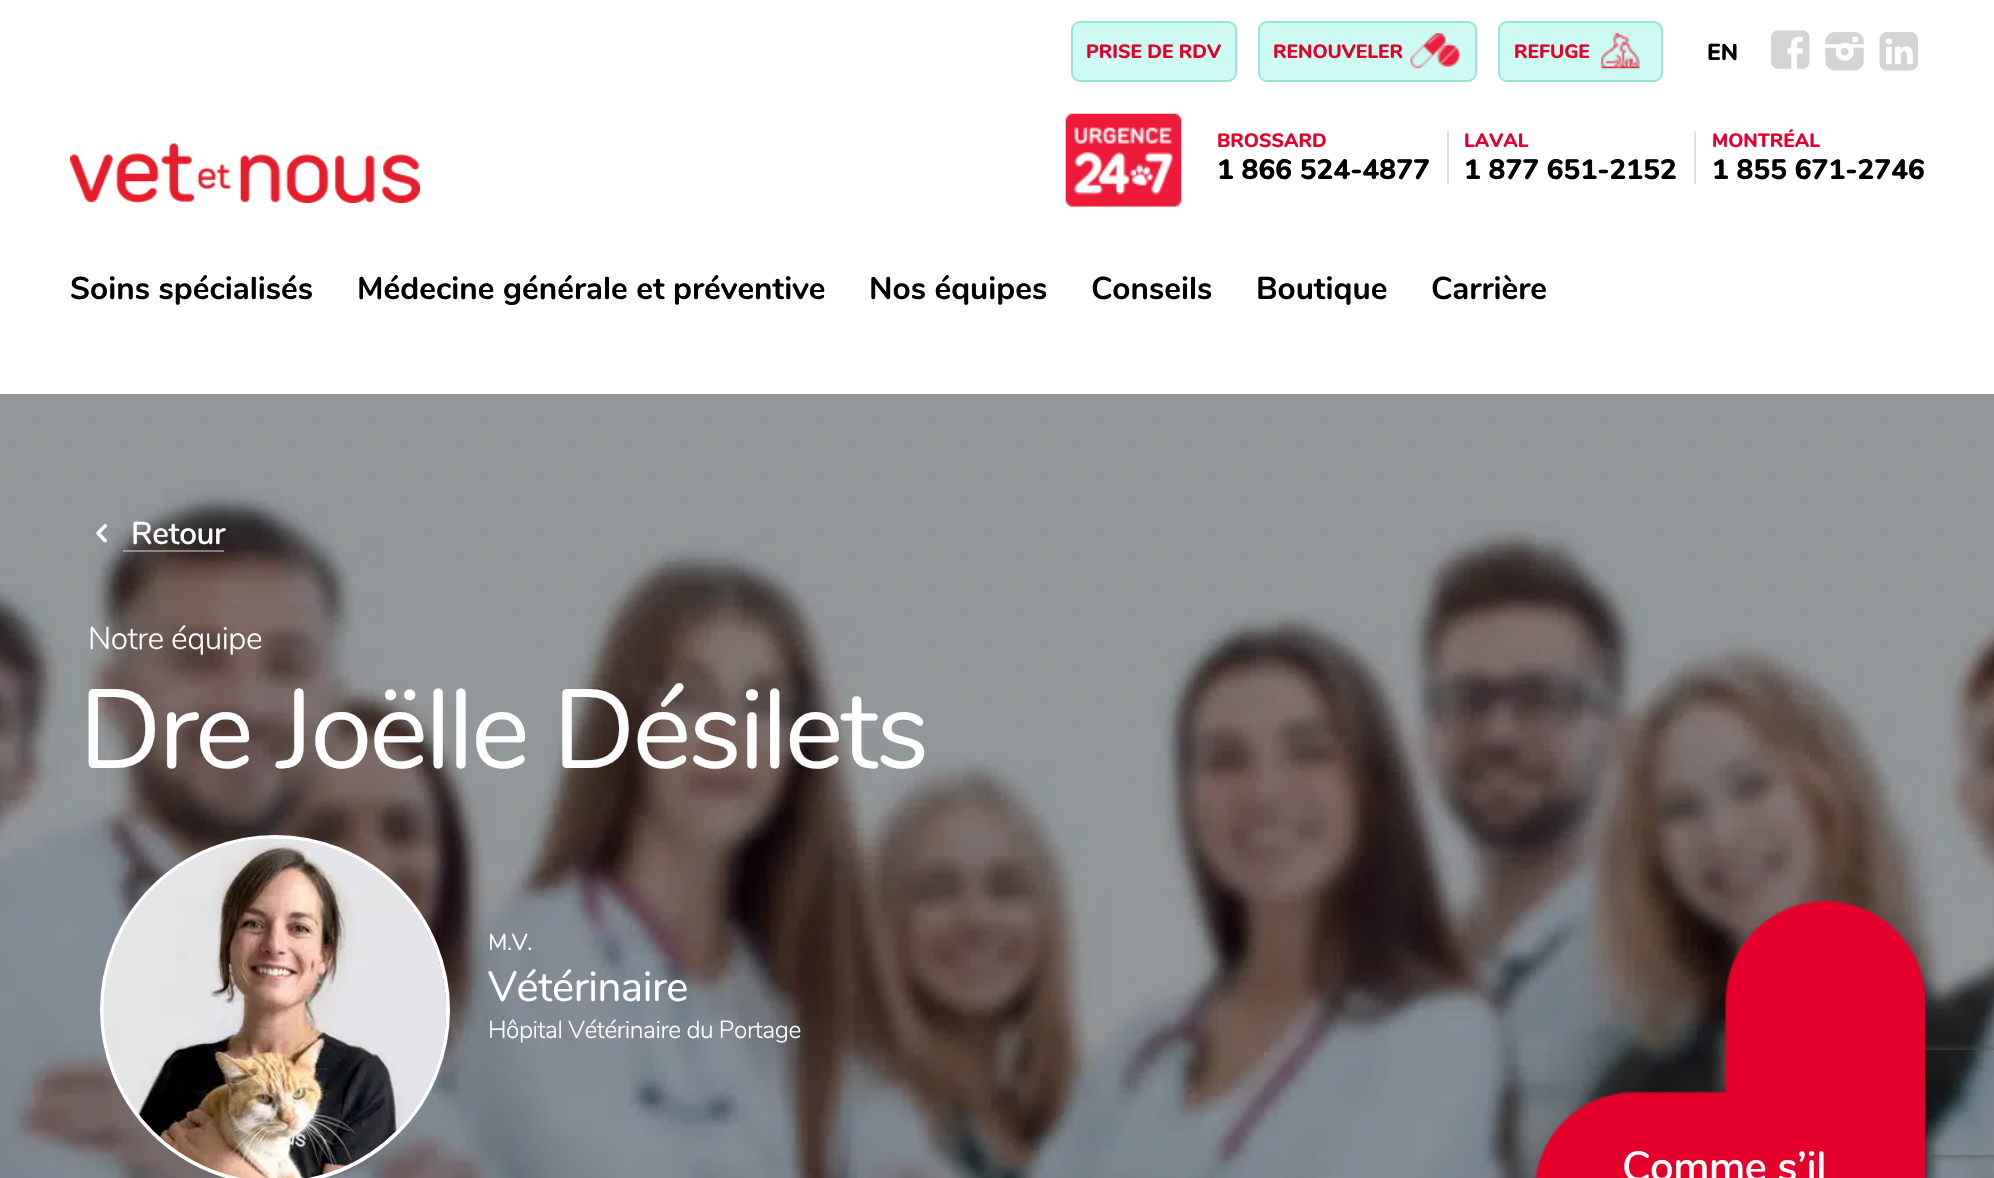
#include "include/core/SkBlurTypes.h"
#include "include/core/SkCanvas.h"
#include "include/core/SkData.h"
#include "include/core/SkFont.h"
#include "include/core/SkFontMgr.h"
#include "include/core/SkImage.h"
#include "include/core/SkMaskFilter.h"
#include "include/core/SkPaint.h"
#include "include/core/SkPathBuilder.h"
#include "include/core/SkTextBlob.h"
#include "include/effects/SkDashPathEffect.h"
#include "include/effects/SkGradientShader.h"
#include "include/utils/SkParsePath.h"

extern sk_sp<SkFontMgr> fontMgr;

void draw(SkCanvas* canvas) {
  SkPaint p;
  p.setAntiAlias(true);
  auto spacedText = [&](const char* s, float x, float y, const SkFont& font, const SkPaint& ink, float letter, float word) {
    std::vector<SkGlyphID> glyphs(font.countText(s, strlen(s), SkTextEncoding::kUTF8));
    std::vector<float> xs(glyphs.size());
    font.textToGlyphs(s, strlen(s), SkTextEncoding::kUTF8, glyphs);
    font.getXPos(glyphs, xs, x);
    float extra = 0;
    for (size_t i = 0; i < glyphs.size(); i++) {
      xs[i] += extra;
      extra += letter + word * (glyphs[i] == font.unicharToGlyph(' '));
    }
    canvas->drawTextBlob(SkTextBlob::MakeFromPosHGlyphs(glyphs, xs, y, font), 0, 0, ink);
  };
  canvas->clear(SK_ColorWHITE);
  p.setColor(SkColorSetRGB(205, 251, 243));
  canvas->drawRoundRect(SkRect::MakeLTRB(1072, 22, 1236, 81), 8, 8, p);
  p.setStyle(SkPaint::kStroke_Style);
  p.setStrokeWidth(2);
  p.setColor(SkColorSetRGB(152, 228, 215));
  canvas->drawRoundRect(SkRect::MakeLTRB(1072, 22, 1236, 81), 8, 8, p);
  p.setStyle(SkPaint::kFill_Style);
  p.setColor(SkColorSetRGB(205, 251, 243));
  canvas->drawRoundRect(SkRect::MakeLTRB(1259, 22, 1476, 81), 8, 8, p);
  p.setStyle(SkPaint::kStroke_Style);
  p.setColor(SkColorSetRGB(152, 228, 215));
  canvas->drawRoundRect(SkRect::MakeLTRB(1259, 22, 1476, 81), 8, 8, p);
  canvas->drawImageRect(SkImages::DeferredFromEncodedData(SkData::MakeFromFileName("images/1.png")), SkRect::MakeLTRB(1410, 33, 1460, 69), SkSamplingOptions());
  p.setStyle(SkPaint::kFill_Style);
  p.setColor(SkColorSetRGB(205, 251, 243));
  canvas->drawRoundRect(SkRect::MakeLTRB(1499, 22, 1662, 81), 8, 8, p);
  p.setStyle(SkPaint::kStroke_Style);
  p.setColor(SkColorSetRGB(152, 228, 215));
  canvas->drawRoundRect(SkRect::MakeLTRB(1499, 22, 1662, 81), 8, 8, p);
  canvas->drawImageRect(SkImages::DeferredFromEncodedData(SkData::MakeFromFileName("images/2.png")), SkRect::MakeLTRB(1600, 33, 1641, 69), SkSamplingOptions());
  canvas->drawImageRect(SkImages::DeferredFromEncodedData(SkData::MakeFromFileName("images/3.png")), SkRect::MakeLTRB(1771, 30, 1810, 69), SkSamplingOptions());
  canvas->drawImageRect(SkImages::DeferredFromEncodedData(SkData::MakeFromFileName("images/4.png")), SkRect::MakeLTRB(1825, 32, 1864, 71), SkSamplingOptions());
  canvas->drawImageRect(SkImages::DeferredFromEncodedData(SkData::MakeFromFileName("images/5.png")), SkRect::MakeLTRB(1879, 32, 1918, 71), SkSamplingOptions());
  canvas->drawImageRect(SkImages::DeferredFromEncodedData(SkData::MakeFromFileName("images/6.png")), SkRect::MakeLTRB(70, 143, 420, 203), SkSamplingOptions());
  canvas->drawImageRect(SkImages::DeferredFromEncodedData(SkData::MakeFromFileName("images/7.png")), SkRect::MakeLTRB(1065, 113, 1182, 207), SkSamplingOptions());
  p.setStyle(SkPaint::kFill_Style);
  p.setColor(SkColorSetRGB(225, 225, 225));
  canvas->drawRect(SkRect::MakeLTRB(1447, 131, 1449, 184), p);
  canvas->drawRect(SkRect::MakeLTRB(1694, 131, 1696, 184), p);
  canvas->drawImageRect(SkImages::DeferredFromEncodedData(SkData::MakeFromFileName("images/8.png")), SkRect::MakeLTRB(0, 394, 1994, 1178), SkSamplingOptions());
  canvas->drawImageRect(SkImages::DeferredFromEncodedData(SkData::MakeFromFileName("images/9.png")), SkRect::MakeLTRB(96, 524, 107, 543), SkSamplingOptions());
  p.setColor(SkColorSetARGB(102, 255, 255, 255));
  canvas->drawRect(SkRect::MakeLTRB(123, 550, 224, 552), p);
  p.setStyle(SkPaint::kStroke_Style);
  p.setStrokeWidth(4);
  p.setColor(SK_ColorWHITE);
  canvas->drawCircle(275, 1010, 173, p);
  canvas->drawImageRect(SkImages::DeferredFromEncodedData(SkData::MakeFromFileName("images/10.png")), SkRect::MakeLTRB(103, 838, 446, 1178), SkSamplingOptions());
  canvas->save();
  canvas->clipPath(SkPathBuilder(SkPathFillType::kEvenOdd).moveTo(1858, 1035).lineTo(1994, 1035).lineTo(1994, 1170).lineTo(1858, 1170).close().moveTo(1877, 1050).lineTo(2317, 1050).cubicTo(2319, 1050, 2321, 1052, 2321, 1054).lineTo(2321, 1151).cubicTo(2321, 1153, 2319, 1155, 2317, 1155).lineTo(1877, 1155).cubicTo(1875, 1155, 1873, 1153, 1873, 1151).lineTo(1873, 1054).cubicTo(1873, 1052, 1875, 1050, 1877, 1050).close().detach(), true);
  p.setStyle(SkPaint::kFill_Style);
  p.setColor(SkColorSetRGB(77, 77, 77));
  p.setMaskFilter(SkMaskFilter::MakeBlur(kNormal_SkBlurStyle, 4.5f));
  canvas->drawRoundRect(SkRect::MakeLTRB(1873, 1050, 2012, 1155), 4, 4, p);
  p.setMaskFilter(nullptr);
  canvas->restore();
  canvas->drawImageRect(SkImages::DeferredFromEncodedData(SkData::MakeFromFileName("images/11.png")), SkRect::MakeLTRB(1534, 901, 1925, 1178), SkSamplingOptions());
  SkFont font1(fontMgr->matchFamilyStyle("Nunito", SkFontStyle(800, SkFontStyle::kNormal_Width, SkFontStyle::kUpright_Slant)), 19.25f);
  font1.setSubpixel(true);
  p.setColor(SkColorSetRGB(228, 0, 43));
  canvas->drawString("PRISE DE RDV", 1086, 58, font1, p);
  canvas->drawString("RENOUVELER", 1273, 58, font1, p);
  canvas->drawString("REFUGE", 1514, 58, font1, p);
  SkFont font2(fontMgr->matchFamilyStyle("Nunito", SkFontStyle(800, SkFontStyle::kNormal_Width, SkFontStyle::kUpright_Slant)), 23);
  font2.setSubpixel(true);
  p.setColor(SK_ColorBLACK);
  canvas->drawString("EN", 1707, 60, font2, p);
  p.setColor(SkColorSetRGB(228, 0, 43));
  canvas->drawString("BROSSARD", 1217, 147, font1, p);
  SkFont font3(fontMgr->matchFamilyStyle("Nunito", SkFontStyle(800, SkFontStyle::kNormal_Width, SkFontStyle::kUpright_Slant)), 28);
  font3.setSubpixel(true);
  p.setColor(SK_ColorBLACK);
  canvas->drawString("1 866 524-4877", 1217, 179, font3, p);
  p.setColor(SkColorSetRGB(228, 0, 43));
  canvas->drawString("LAVAL", 1464, 147, font1, p);
  p.setColor(SK_ColorBLACK);
  canvas->drawString("1 877 651-2152", 1464, 179, font3, p);
  p.setColor(SkColorSetRGB(228, 0, 43));
  canvas->drawString("MONTRÉAL", 1712, 147, font1, p);
  p.setColor(SK_ColorBLACK);
  canvas->drawString("1 855 671-2746", 1712, 179, font3, p);
  SkFont font4(fontMgr->matchFamilyStyle("Nunito", SkFontStyle::Bold()), 31.5f);
  font4.setSubpixel(true);
  canvas->drawString("Soins spécialisés", 70, 299, font4, p);
  canvas->drawString("Médecine générale et préventive", 357, 299, font4, p);
  canvas->drawString("Nos équipes", 869, 299, font4, p);
  canvas->drawString("Conseils", 1091, 299, font4, p);
  canvas->drawString("Boutique", 1256, 299, font4, p);
  canvas->drawString("Carrière", 1431, 299, font4, p);
  SkFont font5(fontMgr->matchFamilyStyle("Nunito", SkFontStyle(600, SkFontStyle::kNormal_Width, SkFontStyle::kUpright_Slant)), 31.5f);
  font5.setSubpixel(true);
  p.setColor(SK_ColorWHITE);
  spacedText("Retour", 131, 544, font5, p, -0.45f, 0);
  SkFont font6(fontMgr->matchFamilyStyle("Nunito", SkFontStyle(300, SkFontStyle::kNormal_Width, SkFontStyle::kUpright_Slant)), 31.5f);
  font6.setSubpixel(true);
  spacedText("Notre équipe", 88, 649, font6, p, -0.45f, 0);
  SkFont font7(fontMgr->matchFamilyStyle("Nunito", SkFontStyle::Normal()), 112);
  font7.setSubpixel(true);
  spacedText("Dre Joëlle Désilets", 79, 768, font7, p, -3.1f, 0);
  SkFont font8(fontMgr->matchFamilyStyle("Nunito", SkFontStyle::Normal()), 23);
  font8.setSubpixel(true);
  spacedText("M.V.", 488, 950, font8, p, -0.45f, 0);
  SkFont font9(fontMgr->matchFamilyStyle("Nunito", SkFontStyle::Normal()), 42);
  font9.setSubpixel(true);
  spacedText("Vétérinaire", 488, 1001, font9, p, -0.45f, 0);
  SkFont font10(fontMgr->matchFamilyStyle("Nunito", SkFontStyle(300, SkFontStyle::kNormal_Width, SkFontStyle::kUpright_Slant)), 24.5f);
  font10.setSubpixel(true);
  spacedText("Hôpital Vétérinaire du Portage", 488, 1038, font10, p, -0.45f, 0);
  SkFont font11(fontMgr->matchFamilyStyle("Nunito", SkFontStyle(600, SkFontStyle::kNormal_Width, SkFontStyle::kUpright_Slant)), 42);
  font11.setSubpixel(true);
  spacedText("Comme s’il", 1622, 1181, font11, p, -0.45f, 0);
}
